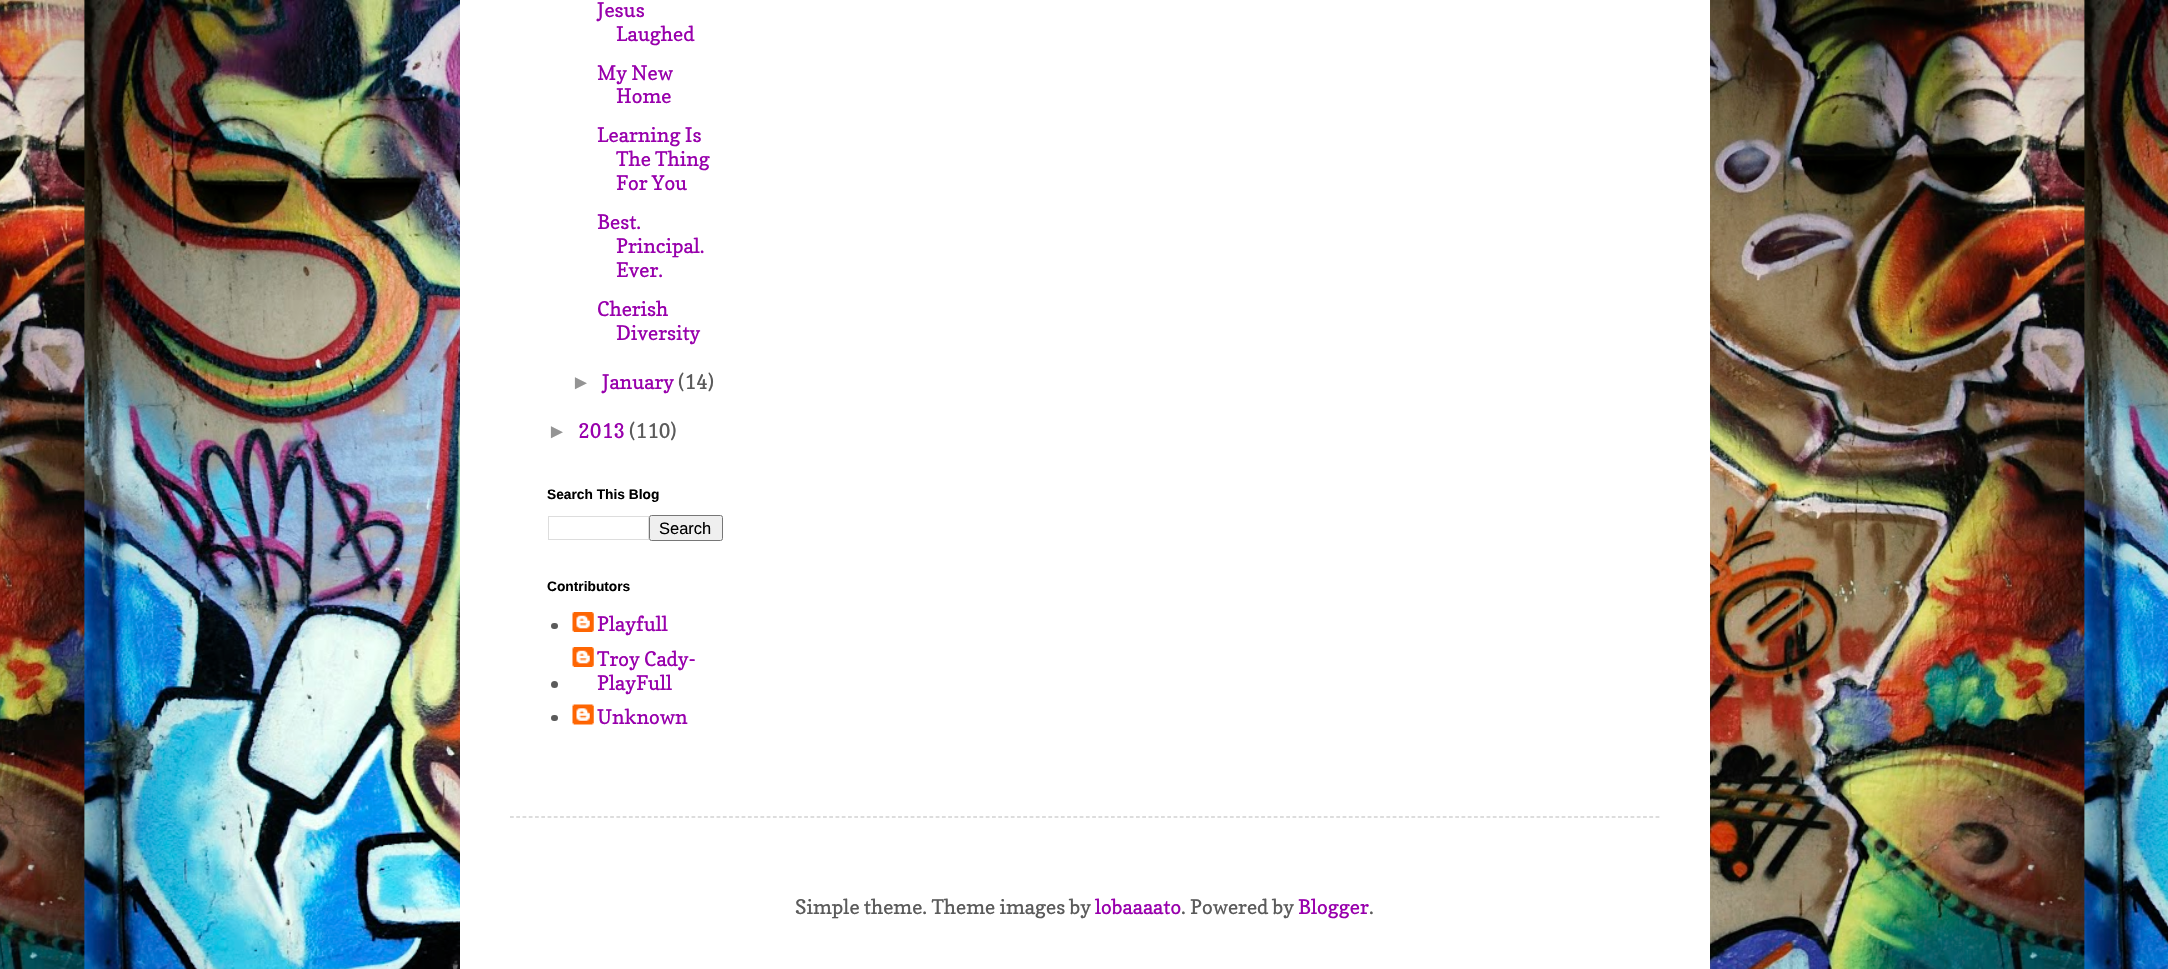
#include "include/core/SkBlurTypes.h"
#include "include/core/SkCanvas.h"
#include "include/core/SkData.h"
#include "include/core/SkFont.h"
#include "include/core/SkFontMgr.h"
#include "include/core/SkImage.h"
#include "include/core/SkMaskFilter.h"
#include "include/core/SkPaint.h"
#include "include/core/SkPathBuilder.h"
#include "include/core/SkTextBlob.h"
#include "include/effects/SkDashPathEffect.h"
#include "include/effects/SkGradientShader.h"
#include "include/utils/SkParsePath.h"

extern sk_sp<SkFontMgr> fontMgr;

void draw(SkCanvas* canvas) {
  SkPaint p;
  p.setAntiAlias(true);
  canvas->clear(SK_ColorWHITE);
  canvas->drawImageRect(SkImages::DeferredFromEncodedData(SkData::MakeFromFileName("images/1.png")), SkRect::MakeLTRB(0, 0, 2168, 969), SkSamplingOptions());
  p.setColor(SK_ColorWHITE);
  canvas->drawRect(SkRect::MakeLTRB(460, 0, 1710, 969), p);
  p.setStyle(SkPaint::kStroke_Style);
  p.setStrokeWidth(1);
  p.setColor(SkColorSetRGB(221, 221, 221));
  canvas->drawRect(SkRect::MakeLTRB(548.5f, 516.5f, 648.5f, 539.5f), p);
  p.setStyle(SkPaint::kFill_Style);
  p.setColor(SkColorSetRGB(239, 239, 239));
  canvas->drawRoundRect(SkRect::MakeLTRB(649.5f, 515.5f, 722.5f, 540.5f), 2, 2, p);
  p.setStyle(SkPaint::kStroke_Style);
  p.setColor(SkColorSetRGB(118, 118, 118));
  canvas->drawRoundRect(SkRect::MakeLTRB(649.5f, 515.5f, 722.5f, 540.5f), 2, 2, p);
  p.setStyle(SkPaint::kFill_Style);
  p.setColor(SkColorSetRGB(91, 91, 91));
  canvas->drawRoundRect(SkRect::MakeLTRB(551, 623, 558, 629), 3, 3, p);
  canvas->drawImageRect(SkImages::DeferredFromEncodedData(SkData::MakeFromFileName("images/2.png")), SkRect::MakeLTRB(572, 612, 594, 632), SkSamplingOptions());
  canvas->drawCircle(554.5f, 684.5f, 3.5f, p);
  canvas->drawImageRect(SkImages::DeferredFromEncodedData(SkData::MakeFromFileName("images/2.png")), SkRect::MakeLTRB(572, 647, 594, 667), SkSamplingOptions());
  canvas->drawRoundRect(SkRect::MakeLTRB(551, 715, 558, 721), 3, 3, p);
  canvas->drawImageRect(SkImages::DeferredFromEncodedData(SkData::MakeFromFileName("images/3.png")), SkRect::MakeLTRB(572, 704, 594, 725), SkSamplingOptions());
  p.setStyle(SkPaint::kStroke_Style);
  p.setStrokeWidth(1.2f);
  p.setColor(SkColorSetRGB(187, 187, 187));
  p.setPathEffect(SkDashPathEffect::Make({{3.75f, 2.51f}}, 0));
  canvas->drawPath(SkPathBuilder().moveTo(510, 817).lineTo(1660, 817).detach(), p);
  p.setPathEffect(nullptr);
  SkFont font1(fontMgr->matchFamilyStyle("Copse", SkFontStyle::Normal()), 20);
  font1.setSubpixel(true);
  p.setStyle(SkPaint::kFill_Style);
  p.setColor(SkColorSetRGB(152, 0, 172));
  canvas->drawString("Jesus", 597, 17, font1, p);
  canvas->drawString("Laughed", 616, 41, font1, p);
  canvas->drawString("My New", 597, 80, font1, p);
  canvas->drawString("Home", 616, 103, font1, p);
  canvas->drawString("Learning Is", 597, 142, font1, p);
  canvas->drawString("The Thing", 616, 166, font1, p);
  canvas->drawString("For You", 616, 190, font1, p);
  canvas->drawString("Best.", 597, 229, font1, p);
  canvas->drawString("Principal.", 616, 253, font1, p);
  canvas->drawString("Ever.", 616, 277, font1, p);
  canvas->drawString("Cherish", 597, 316, font1, p);
  canvas->drawString("Diversity", 616, 340, font1, p);
  SkFont font2(fontMgr->matchFamilyStyle("Liberation Sans", SkFontStyle::Normal()), 20);
  font2.setSubpixel(true);
  p.setColor(SkColorSetRGB(148, 148, 148));
  canvas->drawString("►", 571, 389, font2, p);
  p.setColor(SkColorSetRGB(152, 0, 172));
  canvas->drawString("January", 602, 389, font1, p);
  p.setColor(SkColorSetRGB(91, 91, 91));
  canvas->drawString("(14)", 678, 389, font1, p);
  p.setColor(SkColorSetRGB(148, 148, 148));
  canvas->drawString("►", 547, 438, font2, p);
  p.setColor(SkColorSetRGB(152, 0, 172));
  canvas->drawString("2013", 578, 438, font1, p);
  p.setColor(SkColorSetRGB(91, 91, 91));
  canvas->drawString("(110)", 629, 438, font1, p);
  SkFont font3(fontMgr->matchFamilyStyle("Liberation Sans", SkFontStyle::Bold()), 13.75f);
  font3.setSubpixel(true);
  p.setColor(SK_ColorBLACK);
  canvas->drawString("Search This Blog", 547, 499, font3, p);
  SkFont font4(fontMgr->matchFamilyStyle("Liberation Sans", SkFontStyle::Normal()), 16.5f);
  font4.setSubpixel(true);
  canvas->drawString("Search", 659, 534, font4, p);
  canvas->drawString("Contributors", 547, 591, font3, p);
  p.setColor(SkColorSetRGB(152, 0, 172));
  canvas->drawString("Playfull", 597, 631, font1, p);
  canvas->drawString("Troy Cady-", 597, 666, font1, p);
  canvas->drawString("PlayFull", 597, 690, font1, p);
  canvas->drawString("Unknown", 597, 724, font1, p);
  p.setColor(SkColorSetRGB(91, 91, 91));
  canvas->drawString("Simple theme. Theme images by", 795, 914, font1, p);
  p.setColor(SkColorSetRGB(152, 0, 172));
  canvas->drawString("lobaaaato", 1095, 914, font1, p);
  p.setColor(SkColorSetRGB(91, 91, 91));
  canvas->drawString(". Powered by", 1181, 914, font1, p);
  p.setColor(SkColorSetRGB(152, 0, 172));
  canvas->drawString("Blogger", 1298, 914, font1, p);
  p.setColor(SkColorSetRGB(91, 91, 91));
  canvas->drawString(".", 1369, 914, font1, p);
}
